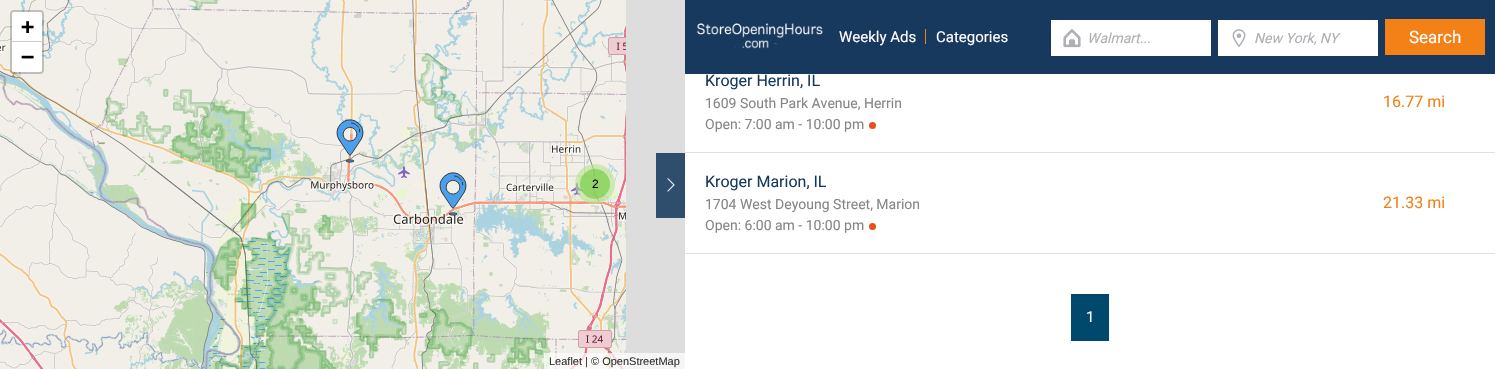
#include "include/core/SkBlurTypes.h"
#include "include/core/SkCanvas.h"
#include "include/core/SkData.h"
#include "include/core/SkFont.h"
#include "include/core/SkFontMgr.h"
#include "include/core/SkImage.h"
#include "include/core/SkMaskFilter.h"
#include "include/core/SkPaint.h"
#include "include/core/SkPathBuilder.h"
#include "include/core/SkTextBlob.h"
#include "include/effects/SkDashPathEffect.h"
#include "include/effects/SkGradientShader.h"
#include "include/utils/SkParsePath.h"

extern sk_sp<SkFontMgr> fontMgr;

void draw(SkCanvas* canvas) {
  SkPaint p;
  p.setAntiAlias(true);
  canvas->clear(SK_ColorWHITE);
  p.setColor(SkColorSetRGB(221, 221, 221));
  canvas->drawRect(SkRect::MakeLTRB(626, 0, 685, 369), p);
  canvas->drawImageRect(SkImages::DeferredFromEncodedData(SkData::MakeFromFileName("images/1.png")), SkRect::MakeLTRB(0, 0, 114, 227), SkSamplingOptions());
  p.setStyle(SkPaint::kStroke_Style);
  p.setStrokeWidth(2);
  p.setColor(SkColorSetARGB(51, 0, 0, 0));
  canvas->drawRoundRect(SkRect::MakeLTRB(11, 11, 43, 73), 3, 3, p);
  p.setStyle(SkPaint::kFill_Style);
  p.setColor(SK_ColorWHITE);
  canvas->drawPath(SkPathBuilder().moveTo(14, 12).lineTo(40, 12).cubicTo(41, 12, 42, 13, 42, 14).lineTo(42, 42).lineTo(12, 42).lineTo(12, 14).cubicTo(12, 13, 13, 12, 14, 12).close().detach(), p);
  p.setColor(SkColorSetRGB(204, 204, 204));
  canvas->drawRect(SkRect::MakeLTRB(12, 41, 42, 42), p);
  p.setColor(SK_ColorWHITE);
  canvas->drawPath(SkPathBuilder().moveTo(12, 42).lineTo(42, 42).lineTo(42, 70).cubicTo(42, 71, 41, 72, 40, 72).lineTo(14, 72).cubicTo(13, 72, 12, 71, 12, 70).close().detach(), p);
  canvas->drawImageRect(SkImages::DeferredFromEncodedData(SkData::MakeFromFileName("images/6.png")), SkRect::MakeLTRB(370, 227, 626, 369), SkSamplingOptions());
  p.setColor(SkColorSetARGB(179, 255, 255, 255));
  canvas->drawRect(SkRect::MakeLTRB(544, 353, 685, 369), p);
  canvas->drawImageRect(SkImages::DeferredFromEncodedData(SkData::MakeFromFileName("images/2.png")), SkRect::MakeLTRB(114, 0, 370, 227), SkSamplingOptions());
  canvas->drawImageRect(SkImages::DeferredFromEncodedData(SkData::MakeFromFileName("images/3.png")), SkRect::MakeLTRB(370, 0, 626, 227), SkSamplingOptions());
  canvas->drawImageRect(SkImages::DeferredFromEncodedData(SkData::MakeFromFileName("images/4.png")), SkRect::MakeLTRB(0, 227, 114, 369), SkSamplingOptions());
  canvas->drawImageRect(SkImages::DeferredFromEncodedData(SkData::MakeFromFileName("images/5.png")), SkRect::MakeLTRB(114, 227, 370, 369), SkSamplingOptions());
  canvas->drawImageRect(SkImages::DeferredFromEncodedData(SkData::MakeFromFileName("images/7.png")), SkRect::MakeLTRB(336, 119, 364, 163), SkSamplingOptions());
  canvas->drawImageRect(SkImages::DeferredFromEncodedData(SkData::MakeFromFileName("images/8.png")), SkRect::MakeLTRB(439, 172, 467, 216), SkSamplingOptions());
  p.setColor(SkColorSetARGB(153, 181, 226, 140));
  canvas->drawCircle(595, 184, 20, p);
  p.setColor(SkColorSetARGB(153, 110, 204, 57));
  canvas->drawCircle(595, 184, 15, p);
  p.setColor(SkColorSetRGB(23, 57, 94));
  canvas->drawRect(SkRect::MakeLTRB(685, 0, 1495, 74), p);
  canvas->drawImageRect(SkImages::DeferredFromEncodedData(SkData::MakeFromFileName("images/9.png")), SkRect::MakeLTRB(696, 23, 823, 49), SkSamplingOptions());
  p.setColor(SkColorSetRGB(243, 129, 24));
  canvas->drawRect(SkRect::MakeLTRB(925, 29, 926, 44), p);
  p.setColor(SK_ColorWHITE);
  canvas->drawRect(SkRect::MakeLTRB(1051, 20, 1211, 56), p);
  canvas->drawImageRect(SkImages::DeferredFromEncodedData(SkData::MakeFromFileName("images/10.png")), SkRect::MakeLTRB(1063, 29, 1081, 48), SkSamplingOptions());
  canvas->drawRect(SkRect::MakeLTRB(1218, 20, 1378, 56), p);
  canvas->drawImageRect(SkImages::DeferredFromEncodedData(SkData::MakeFromFileName("images/11.png")), SkRect::MakeLTRB(1232, 29, 1246, 47), SkSamplingOptions());
  p.setColor(SkColorSetRGB(243, 129, 24));
  canvas->drawRect(SkRect::MakeLTRB(1385, 19, 1485, 55), p);
  p.setColor(SkColorSetRGB(47, 77, 109));
  canvas->drawRect(SkRect::MakeLTRB(656, 153, 685, 218), p);
  canvas->drawImageRect(SkImages::DeferredFromEncodedData(SkData::MakeFromFileName("images/12.png")), SkRect::MakeLTRB(667, 178, 675, 192), SkSamplingOptions());
  p.setColor(SkColorSetRGB(224, 224, 224));
  canvas->drawRect(SkRect::MakeLTRB(685, 152, 1495, 153), p);
  p.setColor(SkColorSetRGB(236, 78, 27));
  canvas->drawCircle(872.5f, 125.5f, 3.5f, p);
  p.setColor(SkColorSetRGB(224, 224, 224));
  canvas->drawRect(SkRect::MakeLTRB(685, 253, 1495, 254), p);
  p.setColor(SkColorSetRGB(236, 78, 27));
  canvas->drawCircle(872.5f, 226.5f, 3.5f, p);
  p.setColor(SkColorSetRGB(0, 73, 108));
  canvas->drawRect(SkRect::MakeLTRB(1071, 294, 1109, 341), p);
  SkFont font1(fontMgr->matchFamilyStyle("DejaVu Sans Mono", SkFontStyle::Bold()), 22);
  font1.setSubpixel(true);
  p.setColor(SK_ColorBLACK);
  canvas->drawString("+", 21, 34, font1, p);
  canvas->drawString("−", 21, 64, font1, p);
  SkFont font2(fontMgr->matchFamilyStyle("Liberation Sans", SkFontStyle::Normal()), 11);
  font2.setSubpixel(true);
  p.setColor(SkColorSetRGB(51, 51, 51));
  canvas->drawString("Leaflet | © OpenStreetMap", 549, 365, font2, p);
  SkFont font3(fontMgr->matchFamilyStyle("Liberation Sans", SkFontStyle::Normal()), 12);
  font3.setSubpixel(true);
  p.setColor(SK_ColorBLACK);
  canvas->drawString("2", 592, 188, font3, p);
  SkFont font4(fontMgr->matchFamilyStyle("Roboto", SkFontStyle::Normal()), 15);
  font4.setSubpixel(true);
  p.setColor(SK_ColorWHITE);
  canvas->drawString("Weekly Ads", 839, 42, font4, p);
  canvas->drawString("Categories", 936, 42, font4, p);
  SkFont font5(fontMgr->matchFamilyStyle("Roboto", SkFontStyle::Italic()), 14);
  font5.setSubpixel(true);
  p.setColor(SkColorSetRGB(174, 176, 179));
  canvas->drawString("Walmart...", 1087, 43, font5, p);
  canvas->drawString("New York, NY", 1254, 43, font5, p);
  SkFont font6(fontMgr->matchFamilyStyle("Roboto", SkFontStyle::Normal()), 17);
  font6.setSubpixel(true);
  p.setColor(SK_ColorWHITE);
  canvas->drawString("Search", 1409, 43, font6, p);
  SkFont font7(fontMgr->matchFamilyStyle("Roboto", SkFontStyle::Normal()), 16);
  font7.setSubpixel(true);
  p.setColor(SkColorSetRGB(23, 57, 94));
  canvas->drawString("Kroger Herrin, IL", 705, 86, font7, p);
  SkFont font8(fontMgr->matchFamilyStyle("Roboto", SkFontStyle::Normal()), 14);
  font8.setSubpixel(true);
  p.setColor(SkColorSetRGB(134, 134, 134));
  canvas->drawString("1609 South Park Avenue, Herrin", 705, 108, font8, p);
  p.setColor(SkColorSetRGB(243, 129, 24));
  canvas->drawString("16.77 mi", 1383, 107, font7, p);
  p.setColor(SkColorSetRGB(134, 134, 134));
  canvas->drawString("Open: 7:00 am - 10:00 pm", 705, 129, font8, p);
  p.setColor(SkColorSetRGB(23, 57, 94));
  canvas->drawString("Kroger Marion, IL", 705, 187, font7, p);
  p.setColor(SkColorSetRGB(134, 134, 134));
  canvas->drawString("1704 West Deyoung Street, Marion", 705, 209, font8, p);
  p.setColor(SkColorSetRGB(243, 129, 24));
  canvas->drawString("21.33 mi", 1383, 208, font7, p);
  p.setColor(SkColorSetRGB(134, 134, 134));
  canvas->drawString("Open: 6:00 am - 10:00 pm", 705, 230, font8, p);
  p.setColor(SK_ColorWHITE);
  canvas->drawString("1", 1086, 322, font4, p);
}
